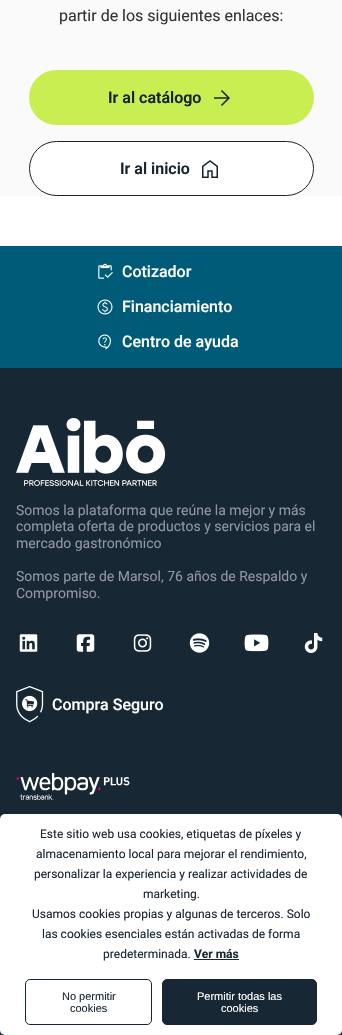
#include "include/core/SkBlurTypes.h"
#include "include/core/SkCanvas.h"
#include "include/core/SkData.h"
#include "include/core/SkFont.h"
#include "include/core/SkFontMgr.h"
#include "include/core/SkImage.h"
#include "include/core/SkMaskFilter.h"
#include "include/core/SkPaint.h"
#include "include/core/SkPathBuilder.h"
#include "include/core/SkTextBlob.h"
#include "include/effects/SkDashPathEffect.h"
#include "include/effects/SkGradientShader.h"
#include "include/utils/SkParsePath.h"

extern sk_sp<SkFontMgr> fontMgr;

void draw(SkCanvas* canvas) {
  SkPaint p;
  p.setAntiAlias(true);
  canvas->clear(SK_ColorWHITE);
  p.setColor(SkColorSetRGB(250, 250, 250));
  canvas->drawRect(SkRect::MakeLTRB(0, 0, 342, 196), p);
  p.setColor(SkColorSetRGB(201, 238, 81));
  canvas->drawRoundRect(SkRect::MakeLTRB(29, 70, 314, 125), 27.5f, 27.5f, p);
  canvas->drawImageRect(SkImages::DeferredFromEncodedData(SkData::MakeFromFileName("images/1.png")), SkRect::MakeLTRB(214, 90, 230, 106), SkSamplingOptions());
  p.setColor(SK_ColorWHITE);
  canvas->drawRoundRect(SkRect::MakeLTRB(29.5f, 141.5f, 313.5f, 195.5f), 27, 27, p);
  p.setStyle(SkPaint::kStroke_Style);
  p.setStrokeWidth(1);
  p.setColor(SkColorSetRGB(21, 35, 45));
  canvas->drawRoundRect(SkRect::MakeLTRB(29.5f, 141.5f, 313.5f, 195.5f), 27, 27, p);
  canvas->drawImageRect(SkImages::DeferredFromEncodedData(SkData::MakeFromFileName("images/2.png")), SkRect::MakeLTRB(202, 160, 218, 178), SkSamplingOptions());
  p.setStyle(SkPaint::kFill_Style);
  p.setColor(SkColorSetRGB(24, 39, 52));
  canvas->drawRect(SkRect::MakeLTRB(0, 368, 342, 819), p);
  p.setColor(SkColorSetRGB(0, 91, 120));
  canvas->drawRect(SkRect::MakeLTRB(0, 246, 342, 368), p);
  canvas->drawImageRect(SkImages::DeferredFromEncodedData(SkData::MakeFromFileName("images/3.png")), SkRect::MakeLTRB(98, 263, 113, 279), SkSamplingOptions());
  canvas->drawImageRect(SkImages::DeferredFromEncodedData(SkData::MakeFromFileName("images/4.png")), SkRect::MakeLTRB(97, 299, 113, 315), SkSamplingOptions());
  canvas->drawImageRect(SkImages::DeferredFromEncodedData(SkData::MakeFromFileName("images/5.png")), SkRect::MakeLTRB(98, 334, 111, 350), SkSamplingOptions());
  canvas->drawImageRect(SkImages::DeferredFromEncodedData(SkData::MakeFromFileName("images/6.png")), SkRect::MakeLTRB(16, 418, 166, 486), SkSamplingOptions());
  canvas->drawImageRect(SkImages::DeferredFromEncodedData(SkData::MakeFromFileName("images/7.png")), SkRect::MakeLTRB(19, 634, 38, 652), SkSamplingOptions());
  canvas->drawImageRect(SkImages::DeferredFromEncodedData(SkData::MakeFromFileName("images/8.png")), SkRect::MakeLTRB(76, 634, 95, 652), SkSamplingOptions());
  canvas->drawImageRect(SkImages::DeferredFromEncodedData(SkData::MakeFromFileName("images/9.png")), SkRect::MakeLTRB(133, 634, 152, 652), SkSamplingOptions());
  canvas->drawImageRect(SkImages::DeferredFromEncodedData(SkData::MakeFromFileName("images/10.png")), SkRect::MakeLTRB(189, 633, 210, 653), SkSamplingOptions());
  canvas->drawImageRect(SkImages::DeferredFromEncodedData(SkData::MakeFromFileName("images/11.png")), SkRect::MakeLTRB(244, 634, 269, 652), SkSamplingOptions());
  canvas->drawImageRect(SkImages::DeferredFromEncodedData(SkData::MakeFromFileName("images/12.png")), SkRect::MakeLTRB(304, 633, 323, 653), SkSamplingOptions());
  canvas->drawImageRect(SkImages::DeferredFromEncodedData(SkData::MakeFromFileName("images/13.png")), SkRect::MakeLTRB(16, 686, 44, 723), SkSamplingOptions());
  canvas->drawImageRect(SkImages::DeferredFromEncodedData(SkData::MakeFromFileName("images/14.png")), SkRect::MakeLTRB(16, 773, 130, 800), SkSamplingOptions());
  p.setColor(SkColorSetRGB(37, 48, 60));
  canvas->drawRect(SkRect::MakeLTRB(0, 1030, 342, 1035), p);
  p.setColor(SK_ColorWHITE);
  canvas->drawRoundRect(SkRect::MakeLTRB(0, 814, 342, 1035), 5, 5, p);
  p.setColor(SkColorSetRGB(24, 39, 52));
  canvas->drawRect(SkRect::MakeLTRB(194, 959, 239, 960), p);
  p.setStyle(SkPaint::kStroke_Style);
  canvas->drawRoundRect(SkRect::MakeLTRB(25.5f, 979.5f, 151.5f, 1024.5f), 4.5f, 4.5f, p);
  p.setStyle(SkPaint::kFill_Style);
  canvas->drawRoundRect(SkRect::MakeLTRB(162.5f, 979.5f, 316.5f, 1024.5f), 4.5f, 4.5f, p);
  p.setStyle(SkPaint::kStroke_Style);
  canvas->drawRoundRect(SkRect::MakeLTRB(162.5f, 979.5f, 316.5f, 1024.5f), 4.5f, 4.5f, p);
  SkFont font1(fontMgr->matchFamilyStyle("Roboto", SkFontStyle::Normal()), 16);
  font1.setSubpixel(true);
  p.setStyle(SkPaint::kFill_Style);
  p.setColor(SkColorSetRGB(51, 51, 51));
  canvas->drawString("partir de los siguientes enlaces:", 59, 21, font1, p);
  SkFont font2(fontMgr->matchFamilyStyle("Roboto", SkFontStyle(600, SkFontStyle::kNormal_Width, SkFontStyle::kUpright_Slant)), 16);
  font2.setSubpixel(true);
  p.setColor(SkColorSetRGB(21, 35, 45));
  canvas->drawString("Ir al catálogo", 108, 103, font2, p);
  canvas->drawString("Ir al inicio", 120, 174, font2, p);
  SkFont font3(fontMgr->matchFamilyStyle("Roboto", SkFontStyle(500, SkFontStyle::kNormal_Width, SkFontStyle::kUpright_Slant)), 16);
  font3.setSubpixel(true);
  p.setColor(SK_ColorWHITE);
  canvas->drawString("Cotizador", 122, 277, font3, p);
  canvas->drawString("Financiamiento", 122, 312, font3, p);
  canvas->drawString("Centro de ayuda", 122, 347, font3, p);
  SkFont font4(fontMgr->matchFamilyStyle("Roboto", SkFontStyle::Normal()), 14);
  font4.setSubpixel(true);
  p.setColor(SkColorSetRGB(144, 151, 163));
  canvas->drawString("Somos la plataforma que reúne la mejor y más", 16, 515, font4, p);
  canvas->drawString("completa oferta de productos y servicios para el", 16, 531, font4, p);
  canvas->drawString("mercado gastronómico", 16, 548, font4, p);
  canvas->drawString("Somos parte de Marsol, 76 años de Respaldo y", 16, 581, font4, p);
  canvas->drawString("Compromiso.", 16, 598, font4, p);
  p.setColor(SK_ColorWHITE);
  canvas->drawString("Compra Seguro", 52, 710, font3, p);
  SkFont font5(fontMgr->matchFamilyStyle("Roboto", SkFontStyle::Normal()), 12);
  font5.setSubpixel(true);
  p.setColor(SkColorSetRGB(24, 39, 52));
  canvas->drawString("Este sitio web usa cookies, etiquetas de píxeles y", 40, 838, font5, p);
  canvas->drawString("almacenamiento local para mejorar el rendimiento,", 36, 858, font5, p);
  canvas->drawString("personalizar la experiencia y realizar actividades de", 34, 878, font5, p);
  canvas->drawString("marketing.", 143, 898, font5, p);
  canvas->drawString("Usamos cookies propias y algunas de terceros. Solo", 32, 918, font5, p);
  canvas->drawString("las cookies esenciales están activadas de forma", 42, 938, font5, p);
  canvas->drawString("predeterminada.", 103, 958, font5, p);
  SkFont font6(fontMgr->matchFamilyStyle("Roboto", SkFontStyle::Bold()), 12);
  font6.setSubpixel(true);
  canvas->drawString("Ver más", 194, 958, font6, p);
  SkFont font7(fontMgr->matchFamilyStyle("Liberation Sans", SkFontStyle::Normal()), 11);
  font7.setSubpixel(true);
  canvas->drawString("No permitir", 62, 1000, font7, p);
  canvas->drawString("cookies", 70, 1012, font7, p);
  p.setColor(SK_ColorWHITE);
  canvas->drawString("Permitir todas las", 197, 1000, font7, p);
  canvas->drawString("cookies", 221, 1012, font7, p);
}
